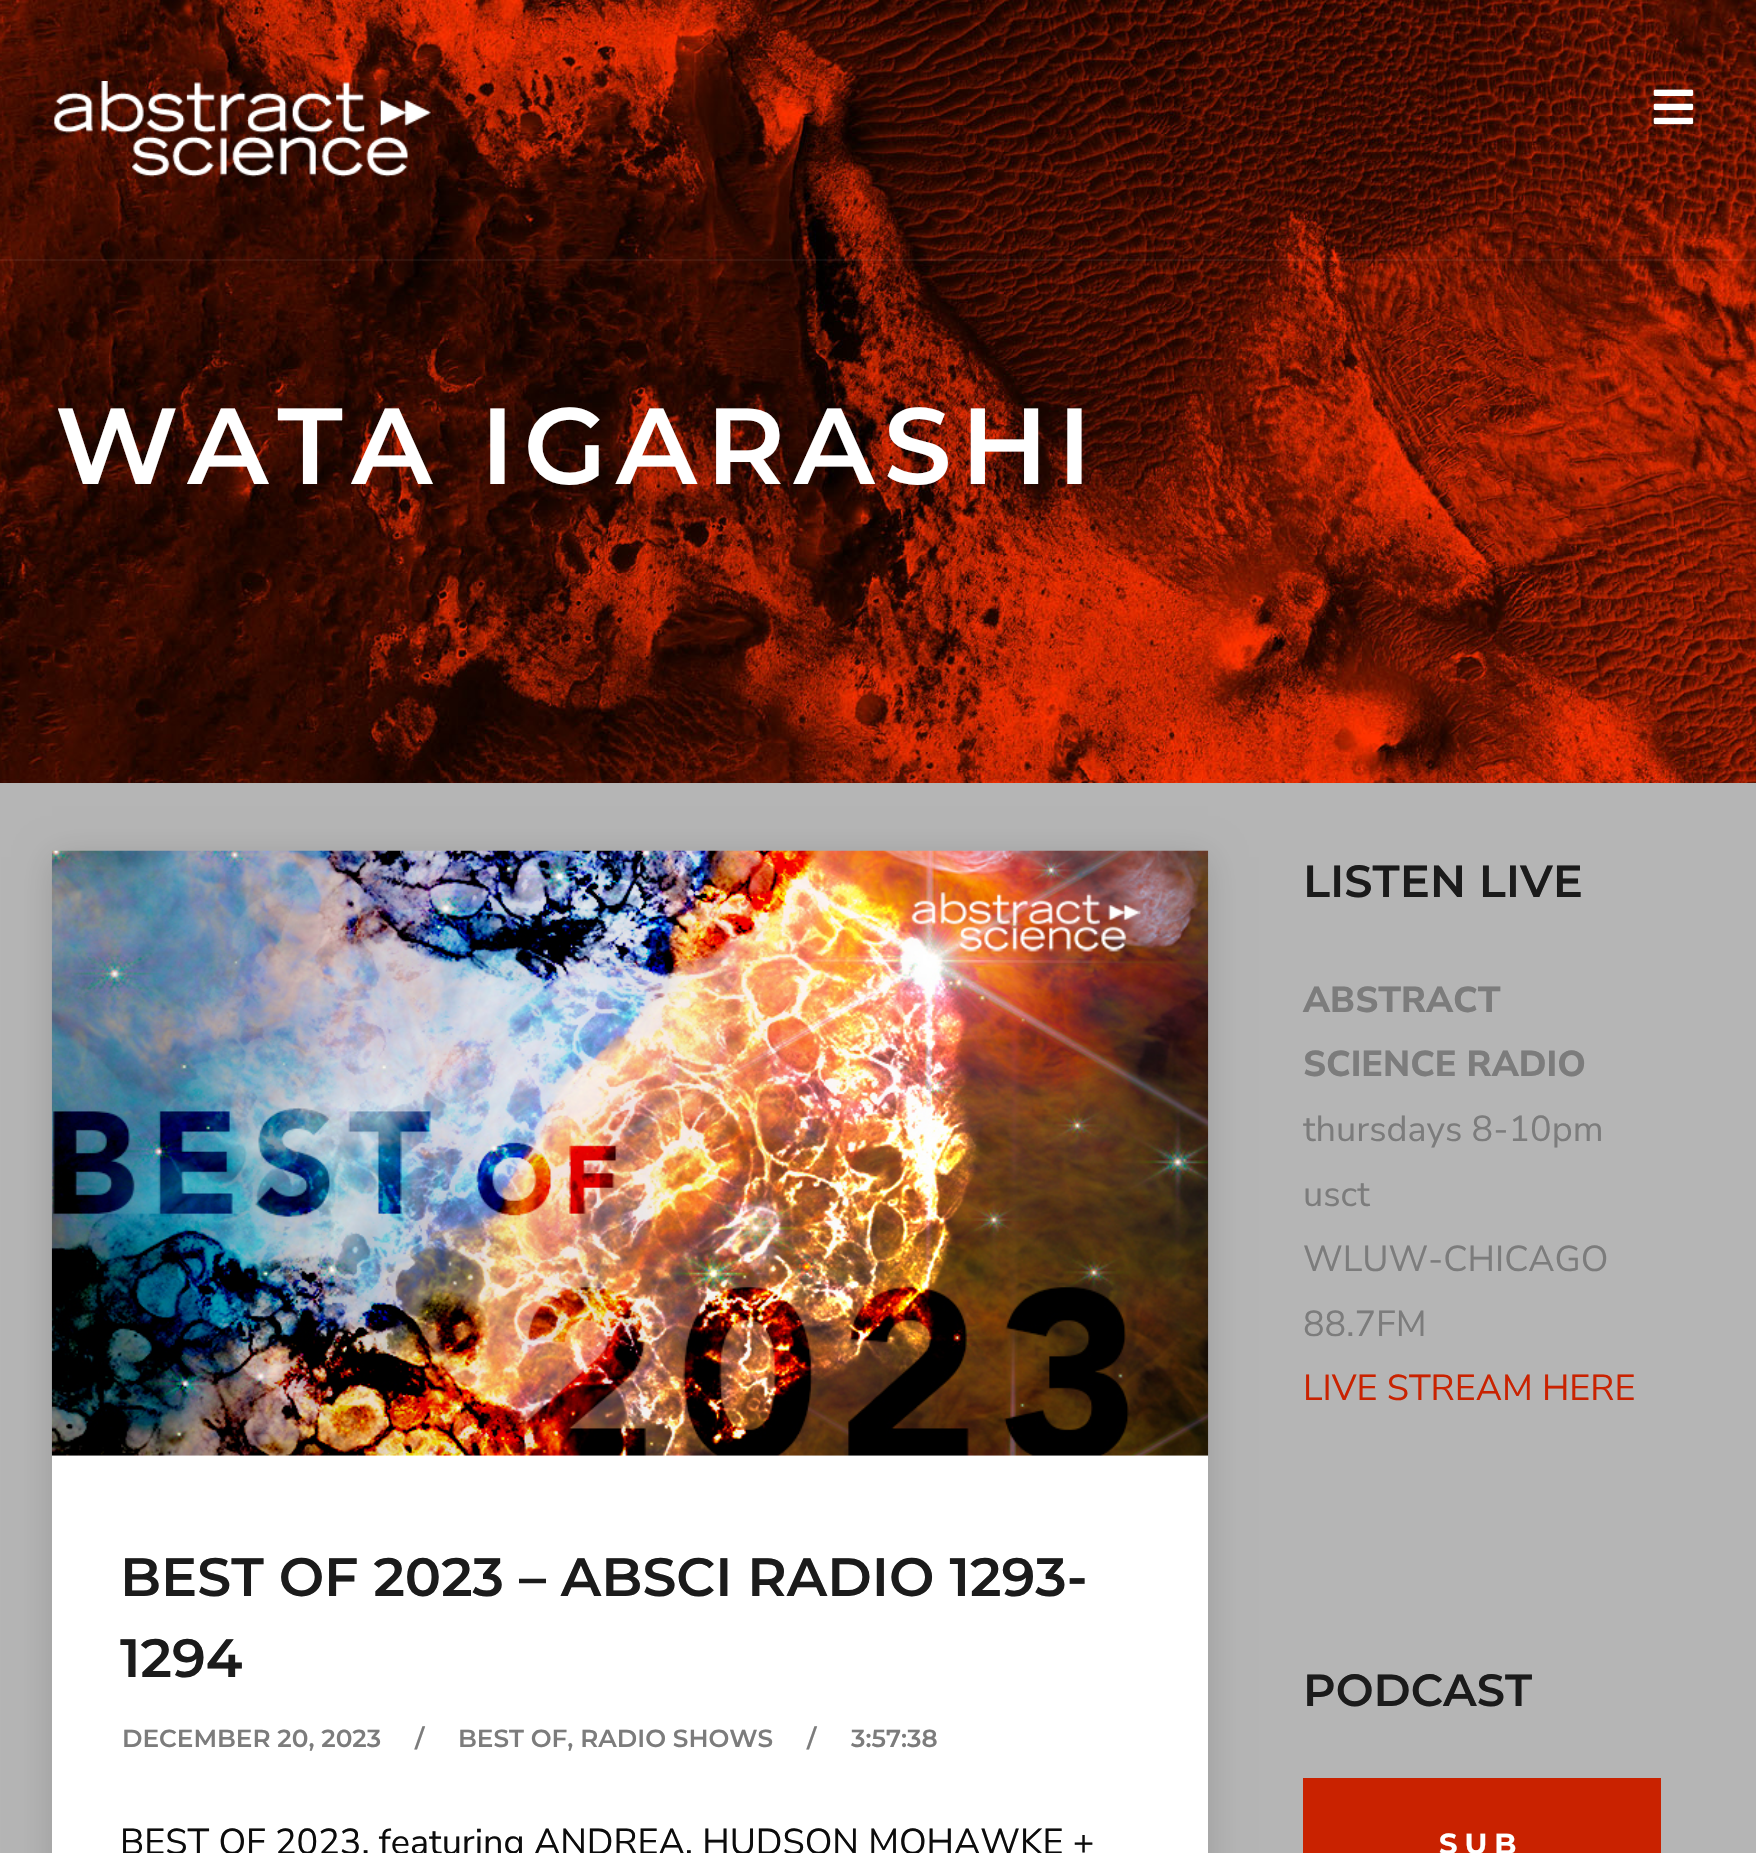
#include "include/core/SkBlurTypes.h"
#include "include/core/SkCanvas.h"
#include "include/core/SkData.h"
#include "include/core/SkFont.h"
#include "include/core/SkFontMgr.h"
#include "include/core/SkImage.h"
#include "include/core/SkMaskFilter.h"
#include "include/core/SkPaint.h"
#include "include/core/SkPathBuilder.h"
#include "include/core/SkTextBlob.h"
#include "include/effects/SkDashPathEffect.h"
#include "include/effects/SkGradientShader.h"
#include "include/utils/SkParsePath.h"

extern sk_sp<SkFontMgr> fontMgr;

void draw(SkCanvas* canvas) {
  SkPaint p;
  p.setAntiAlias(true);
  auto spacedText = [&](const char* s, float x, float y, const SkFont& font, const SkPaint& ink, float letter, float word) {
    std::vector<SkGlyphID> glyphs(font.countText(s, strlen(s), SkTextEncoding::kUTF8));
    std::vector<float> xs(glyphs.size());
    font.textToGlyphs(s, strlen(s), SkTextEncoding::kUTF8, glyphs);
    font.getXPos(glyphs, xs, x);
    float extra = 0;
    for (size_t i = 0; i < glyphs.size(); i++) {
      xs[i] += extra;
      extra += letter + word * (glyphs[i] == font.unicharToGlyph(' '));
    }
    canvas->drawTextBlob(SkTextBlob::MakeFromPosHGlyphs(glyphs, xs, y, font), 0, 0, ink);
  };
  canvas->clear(SkColorSetRGB(181, 181, 181));
  canvas->drawImageRect(SkImages::DeferredFromEncodedData(SkData::MakeFromFileName("images/3.png")), SkRect::MakeLTRB(0, 0, 1756, 783), SkSamplingOptions());
  canvas->drawImageRect(SkImages::DeferredFromEncodedData(SkData::MakeFromFileName("images/1.png")), SkRect::MakeLTRB(54, 81, 431, 177), SkSamplingOptions());
  canvas->drawImageRect(SkImages::DeferredFromEncodedData(SkData::MakeFromFileName("images/2.png")), SkRect::MakeLTRB(1653, 89, 1694, 125), SkSamplingOptions());
  p.setColor(SkColorSetARGB(13, 255, 255, 255));
  canvas->drawRect(SkRect::MakeLTRB(0, 259, 1756, 261), p);
  p.setColor(SkColorSetARGB(38, 0, 0, 0));
  p.setMaskFilter(SkMaskFilter::MakeBlur(kNormal_SkBlurStyle, 17));
  canvas->drawRect(SkRect::MakeLTRB(52, 857, 1208, 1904), p);
  p.setMaskFilter(nullptr);
  p.setColor(SK_ColorWHITE);
  canvas->drawRect(SkRect::MakeLTRB(52, 1455, 1208, 1853), p);
  canvas->drawImageRect(SkImages::DeferredFromEncodedData(SkData::MakeFromFileName("images/4.png")), SkRect::MakeLTRB(51, 850, 1209, 1456), SkSamplingOptions());
  p.setColor(SkColorSetRGB(201, 34, 0));
  canvas->drawRect(SkRect::MakeLTRB(1303, 1778, 1661, 1853), p);
  SkFont font1(fontMgr->matchFamilyStyle("Montserrat", SkFontStyle(600, SkFontStyle::kNormal_Width, SkFontStyle::kUpright_Slant)), 108);
  font1.setSubpixel(true);
  p.setColor(SK_ColorWHITE);
  spacedText("WATA IGARASHI", 55, 484, font1, p, 9, 0);
  SkFont font2(fontMgr->matchFamilyStyle("Montserrat", SkFontStyle(600, SkFontStyle::kNormal_Width, SkFontStyle::kUpright_Slant)), 54);
  font2.setSubpixel(true);
  p.setColor(SkColorSetRGB(27, 27, 27));
  canvas->drawString("BEST OF 2023 – ABSCI RADIO 1293-", 120, 1596, font2, p);
  canvas->drawString("1294", 120, 1677, font2, p);
  SkFont font3(fontMgr->matchFamilyStyle("Montserrat", SkFontStyle(600, SkFontStyle::kNormal_Width, SkFontStyle::kUpright_Slant)), 24.75f);
  font3.setSubpixel(true);
  p.setColor(SkColorSetRGB(124, 124, 124));
  canvas->drawString("DECEMBER 20, 2023", 122, 1747, font3, p);
  canvas->drawString("/", 415, 1747, font3, p);
  canvas->drawString("BEST OF, RADIO SHOWS", 458, 1747, font3, p);
  canvas->drawString("/", 807, 1747, font3, p);
  canvas->drawString("3:57:38", 851, 1747, font3, p);
  SkFont font4(fontMgr->matchFamilyStyle("Nunito Sans", SkFontStyle::Normal()), 36);
  font4.setSubpixel(true);
  p.setColor(SkColorSetRGB(12, 12, 12));
  canvas->drawString("BEST OF 2023, featuring ANDREA, HUDSON MOHAWKE +", 120, 1854, font4, p);
  SkFont font5(fontMgr->matchFamilyStyle("Montserrat", SkFontStyle(600, SkFontStyle::kNormal_Width, SkFontStyle::kUpright_Slant)), 45);
  font5.setSubpixel(true);
  p.setColor(SkColorSetRGB(27, 27, 27));
  canvas->drawString("LISTEN LIVE", 1303, 897, font5, p);
  SkFont font6(fontMgr->matchFamilyStyle("Nunito Sans", SkFontStyle(800, SkFontStyle::kNormal_Width, SkFontStyle::kUpright_Slant)), 36);
  font6.setSubpixel(true);
  p.setColor(SkColorSetRGB(124, 124, 124));
  canvas->drawString("ABSTRACT", 1303, 1012, font6, p);
  canvas->drawString("SCIENCE RADIO", 1303, 1076, font6, p);
  canvas->drawString("thursdays 8-10pm", 1303, 1141, font4, p);
  canvas->drawString("usct", 1303, 1206, font4, p);
  canvas->drawString("WLUW-CHICAGO", 1303, 1271, font4, p);
  canvas->drawString("88.7FM", 1303, 1336, font4, p);
  p.setColor(SkColorSetRGB(201, 34, 0));
  canvas->drawString("LIVE STREAM HERE", 1303, 1400, font4, p);
  p.setColor(SkColorSetRGB(27, 27, 27));
  canvas->drawString("PODCAST", 1303, 1706, font5, p);
  SkFont font7(fontMgr->matchFamilyStyle("Montserrat", SkFontStyle::Bold()), 29);
  font7.setSubpixel(true);
  p.setColor(SK_ColorWHITE);
  spacedText("SUB", 1439, 1854, font7, p, 7, 0);
}
